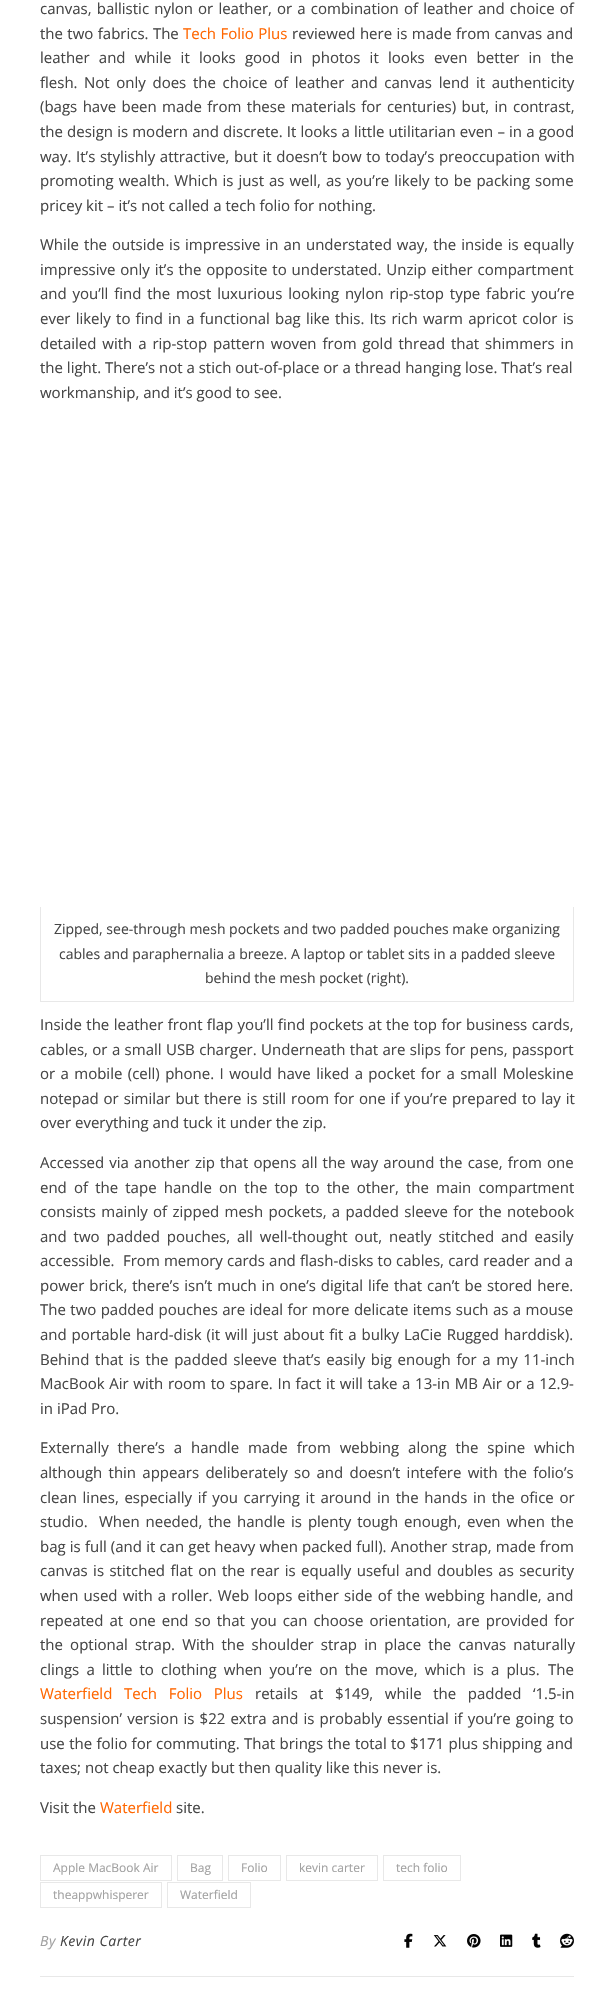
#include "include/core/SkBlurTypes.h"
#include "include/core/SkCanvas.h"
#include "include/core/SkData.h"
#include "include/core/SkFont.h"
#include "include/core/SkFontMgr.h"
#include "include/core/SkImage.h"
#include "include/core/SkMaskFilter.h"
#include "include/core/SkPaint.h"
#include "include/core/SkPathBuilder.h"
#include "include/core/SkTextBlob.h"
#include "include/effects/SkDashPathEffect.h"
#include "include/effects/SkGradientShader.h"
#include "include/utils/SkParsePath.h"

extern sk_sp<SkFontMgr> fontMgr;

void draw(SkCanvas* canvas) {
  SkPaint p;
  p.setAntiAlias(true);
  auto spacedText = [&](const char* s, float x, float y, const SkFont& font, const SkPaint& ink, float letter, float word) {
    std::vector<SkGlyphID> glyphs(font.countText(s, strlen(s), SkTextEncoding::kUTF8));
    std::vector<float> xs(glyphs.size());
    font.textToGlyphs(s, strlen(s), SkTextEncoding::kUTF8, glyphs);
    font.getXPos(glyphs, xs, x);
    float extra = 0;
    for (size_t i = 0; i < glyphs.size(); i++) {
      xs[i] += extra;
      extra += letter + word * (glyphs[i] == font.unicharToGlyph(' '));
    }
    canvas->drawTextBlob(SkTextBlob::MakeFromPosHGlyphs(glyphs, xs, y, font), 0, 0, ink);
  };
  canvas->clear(SK_ColorWHITE);
  p.setColor(SkColorSetRGB(232, 232, 232));
  canvas->drawRect(SkRect::MakeLTRB(573, 907, 574, 1002), p);
  canvas->drawRect(SkRect::MakeLTRB(40, 1001, 574, 1002), p);
  canvas->drawRect(SkRect::MakeLTRB(40, 907, 41, 1002), p);
  canvas->drawRect(SkRect::MakeLTRB(40, 1976, 574, 1977), p);
  p.setStyle(SkPaint::kStroke_Style);
  p.setStrokeWidth(1);
  canvas->drawRect(SkRect::MakeLTRB(40.5f, 1855.5f, 171.5f, 1880.5f), p);
  canvas->drawRect(SkRect::MakeLTRB(177.5f, 1855.5f, 222.5f, 1880.5f), p);
  canvas->drawRect(SkRect::MakeLTRB(228.5f, 1855.5f, 280.5f, 1880.5f), p);
  canvas->drawRect(SkRect::MakeLTRB(286.5f, 1855.5f, 377.5f, 1880.5f), p);
  canvas->drawRect(SkRect::MakeLTRB(383.5f, 1855.5f, 460.5f, 1880.5f), p);
  canvas->drawRect(SkRect::MakeLTRB(40.5f, 1882.5f, 161.5f, 1907.5f), p);
  canvas->drawRect(SkRect::MakeLTRB(167.5f, 1882.5f, 250.5f, 1907.5f), p);
  canvas->drawImageRect(SkImages::DeferredFromEncodedData(SkData::MakeFromFileName("images/1.png")), SkRect::MakeLTRB(404, 1933, 413, 1948), SkSamplingOptions());
  canvas->drawImageRect(SkImages::DeferredFromEncodedData(SkData::MakeFromFileName("images/2.png")), SkRect::MakeLTRB(433, 1935, 447, 1947), SkSamplingOptions());
  canvas->drawImageRect(SkImages::DeferredFromEncodedData(SkData::MakeFromFileName("images/3.png")), SkRect::MakeLTRB(467, 1934, 481, 1948), SkSamplingOptions());
  canvas->drawImageRect(SkImages::DeferredFromEncodedData(SkData::MakeFromFileName("images/4.png")), SkRect::MakeLTRB(500, 1934, 513, 1947), SkSamplingOptions());
  canvas->drawImageRect(SkImages::DeferredFromEncodedData(SkData::MakeFromFileName("images/5.png")), SkRect::MakeLTRB(532, 1933, 541, 1948), SkSamplingOptions());
  canvas->drawImageRect(SkImages::DeferredFromEncodedData(SkData::MakeFromFileName("images/6.png")), SkRect::MakeLTRB(560, 1933, 574, 1948), SkSamplingOptions());
  SkFont font1(fontMgr->matchFamilyStyle("Open Sans", SkFontStyle::Normal()), 15);
  font1.setSubpixel(true);
  p.setStyle(SkPaint::kFill_Style);
  p.setColor(SkColorSetRGB(70, 70, 70));
  spacedText("canvas, ballistic nylon or leather, or a combination of leather and choice of", 40, 14, font1, p, 0, 1.25f);
  spacedText("the two fabrics. The", 40, 39, font1, p, 0, 0.5f);
  p.setColor(SkColorSetRGB(255, 102, 0));
  spacedText("Tech Folio Plus", 183, 39, font1, p, 0, 0.5f);
  p.setColor(SkColorSetRGB(70, 70, 70));
  spacedText("reviewed here is made from canvas and", 292, 39, font1, p, 0, 0.5f);
  spacedText("leather and while it looks good in photos it looks even better in the", 40, 63, font1, p, 0, 5.25f);
  canvas->drawString("flesh.", 40, 88, font1, p);
  spacedText("Not only does the choice of leather and canvas lend it authenticity", 84, 88, font1, p, 0, 2.75f);
  spacedText("(bags have been made from these materials for centuries) but, in contrast,", 40, 112, font1, p, 0, 1.5f);
  spacedText("the design is modern and discrete. It looks a little utilitarian even – in a good", 40, 137, font1, p, 0, 0.25f);
  spacedText("way. It’s stylishly attractive, but it doesn’t bow to today’s preoccupation with", 40, 162, font1, p, 0, 0.75f);
  spacedText("promoting wealth. Which is just as well, as you’re likely to be packing some", 40, 186, font1, p, 0, 1.1f);
  canvas->drawString("pricey kit – it’s not called a tech folio for nothing.", 40, 211, font1, p);
  spacedText("While the outside is impressive in an understated way, the inside is equally", 40, 250, font1, p, 0, 1.1f);
  spacedText("impressive only it’s the opposite to understated. Unzip either compartment", 40, 275, font1, p, 0, 1);
  spacedText("and you’ll find the most luxurious looking nylon rip-stop type fabric you’re", 40, 299, font1, p, 0, 1.9f);
  spacedText("ever likely to find in a functional bag like this. Its rich warm apricot color is", 40, 324, font1, p, 0, 1.3f);
  spacedText("detailed with a rip-stop pattern woven from gold thread that shimmers in", 40, 349, font1, p, 0, 2);
  canvas->drawString("the light. There’s not a stich out-of-place or a thread hanging lose. That’s real", 40, 373, font1, p);
  canvas->drawString("workmanship, and it’s good to see.", 40, 398, font1, p);
  SkFont font2(fontMgr->matchFamilyStyle("Open Sans", SkFontStyle::Normal()), 14);
  font2.setSubpixel(true);
  canvas->drawString("Zipped, see-through mesh pockets and two padded pouches make organizing", 54, 934, font2, p);
  canvas->drawString("cables and paraphernalia a breeze. A laptop or tablet sits in a padded sleeve", 59, 959, font2, p);
  canvas->drawString("behind the mesh pocket (right).", 205, 983, font2, p);
  spacedText("Inside the leather front flap you’ll find pockets at the top for business cards,", 40, 1030, font1, p, 0, 0.5f);
  spacedText("cables, or a small USB charger. Underneath that are slips for pens, passport", 40, 1055, font1, p, 0, 0.5f);
  spacedText("or a mobile (cell) phone. I would have liked a pocket for a small Moleskine", 40, 1079, font1, p, 0, 1.5f);
  spacedText("notepad or similar but there is still room for one if you’re prepared to lay it", 40, 1104, font1, p, 0, 1);
  canvas->drawString("over everything and tuck it under the zip.", 40, 1128, font1, p);
  spacedText("Accessed via another zip that opens all the way around the case, from one", 40, 1168, font1, p, 0, 1.25f);
  spacedText("end of the tape handle on the top to the other, the main compartment", 40, 1193, font1, p, 0, 3.25f);
  spacedText("consists mainly of zipped mesh pockets, a padded sleeve for the notebook", 40, 1217, font1, p, 0, 1.4f);
  spacedText("and two padded pouches, all well-thought out, neatly stitched and easily", 40, 1242, font1, p, 0, 3);
  canvas->drawString("accessible.", 40, 1266, font1, p);
  spacedText("From memory cards and flash-disks to cables, card reader and a", 123, 1266, font1, p, 0, 0.25f);
  spacedText("power brick, there’s isn’t much in one’s digital life that can’t be stored here.", 40, 1291, font1, p, 0, 1);
  spacedText("The two padded pouches are ideal for more delicate items such as a mouse", 40, 1315, font1, p, 0, 0.5f);
  spacedText("and portable hard-disk (it will just about fit a bulky LaCie Rugged harddisk).", 40, 1340, font1, p, 0, 1);
  spacedText("Behind that is the padded sleeve that’s easily big enough for a my 11-inch", 40, 1365, font1, p, 0, 1.75f);
  spacedText("MacBook Air with room to spare. In fact it will take a 13-in MB Air or a 12.9-", 40, 1389, font1, p, 0, 0.75f);
  canvas->drawString("in iPad Pro.", 40, 1414, font1, p);
  spacedText("Externally there’s a handle made from webbing along the spine which", 40, 1453, font1, p, 0, 5);
  spacedText("although thin appears deliberately so and doesn’t intefere with the folio’s", 40, 1478, font1, p, 0, 2.4f);
  spacedText("clean lines, especially if you carrying it around in the hands in the ofice or", 40, 1503, font1, p, 0, 1.75f);
  canvas->drawString("studio.", 40, 1527, font1, p);
  spacedText("When needed, the handle is plenty tough enough, even when the", 99, 1527, font1, p, 0, 2);
  spacedText("bag is full (and it can get heavy when packed full). Another strap, made from", 40, 1552, font1, p, 0, 0.25f);
  spacedText("canvas is stitched flat on the rear is equally useful and doubles as security", 40, 1576, font1, p, 0, 1.5f);
  spacedText("when used with a roller. Web loops either side of the webbing handle, and", 40, 1601, font1, p, 0, 1.25f);
  spacedText("repeated at one end so that you can choose orientation, are provided for", 40, 1626, font1, p, 0, 2.1f);
  spacedText("the optional strap. With the shoulder strap in place the canvas naturally", 40, 1650, font1, p, 0, 3.25f);
  spacedText("clings a little to clothing when you’re on the move, which is a plus.", 40, 1675, font1, p, 0, 3.25f);
  canvas->drawString("The", 548, 1675, font1, p);
  p.setColor(SkColorSetRGB(255, 102, 0));
  spacedText("Waterfield Tech Folio Plus", 40, 1699, font1, p, 0, 7.75f);
  p.setColor(SkColorSetRGB(70, 70, 70));
  spacedText("retails at $149, while the padded ‘1.5-in", 255, 1699, font1, p, 0, 7.75f);
  spacedText("suspension’ version is $22 extra and is probably essential if you’re going to", 40, 1724, font1, p, 0, 1.25f);
  spacedText("use the folio for", 40, 1749, font1, p, 0, 0.5f);
  spacedText("commuting. That brings the total to $171 plus shipping and", 156, 1749, font1, p, 0, 0.5f);
  canvas->drawString("taxes; not cheap exactly but then quality like this never is.", 40, 1773, font1, p);
  canvas->drawString("Visit the", 40, 1813, font1, p);
  p.setColor(SkColorSetRGB(255, 102, 0));
  canvas->drawString("Waterfield", 100, 1813, font1, p);
  p.setColor(SkColorSetRGB(70, 70, 70));
  canvas->drawString("site.", 176, 1813, font1, p);
  SkFont font3(fontMgr->matchFamilyStyle("Open Sans", SkFontStyle::Normal()), 12);
  font3.setSubpixel(true);
  p.setColor(SkColorSetRGB(161, 161, 161));
  canvas->drawString("Apple MacBook Air", 53, 1872, font3, p);
  canvas->drawString("Bag", 190, 1872, font3, p);
  canvas->drawString("Folio", 241, 1872, font3, p);
  canvas->drawString("kevin carter", 299, 1872, font3, p);
  canvas->drawString("tech folio", 396, 1872, font3, p);
  canvas->drawString("theappwhisperer", 53, 1899, font3, p);
  canvas->drawString("Waterfield", 180, 1899, font3, p);
  SkFont font4(fontMgr->matchFamilyStyle("Open Sans", SkFontStyle::Italic()), 14);
  font4.setSubpixel(true);
  spacedText("By", 40, 1946, font4, p, 0.5f, 0);
  p.setColor(SkColorSetRGB(70, 70, 70));
  spacedText("Kevin Carter", 60, 1946, font4, p, 0.5f, 0);
}
